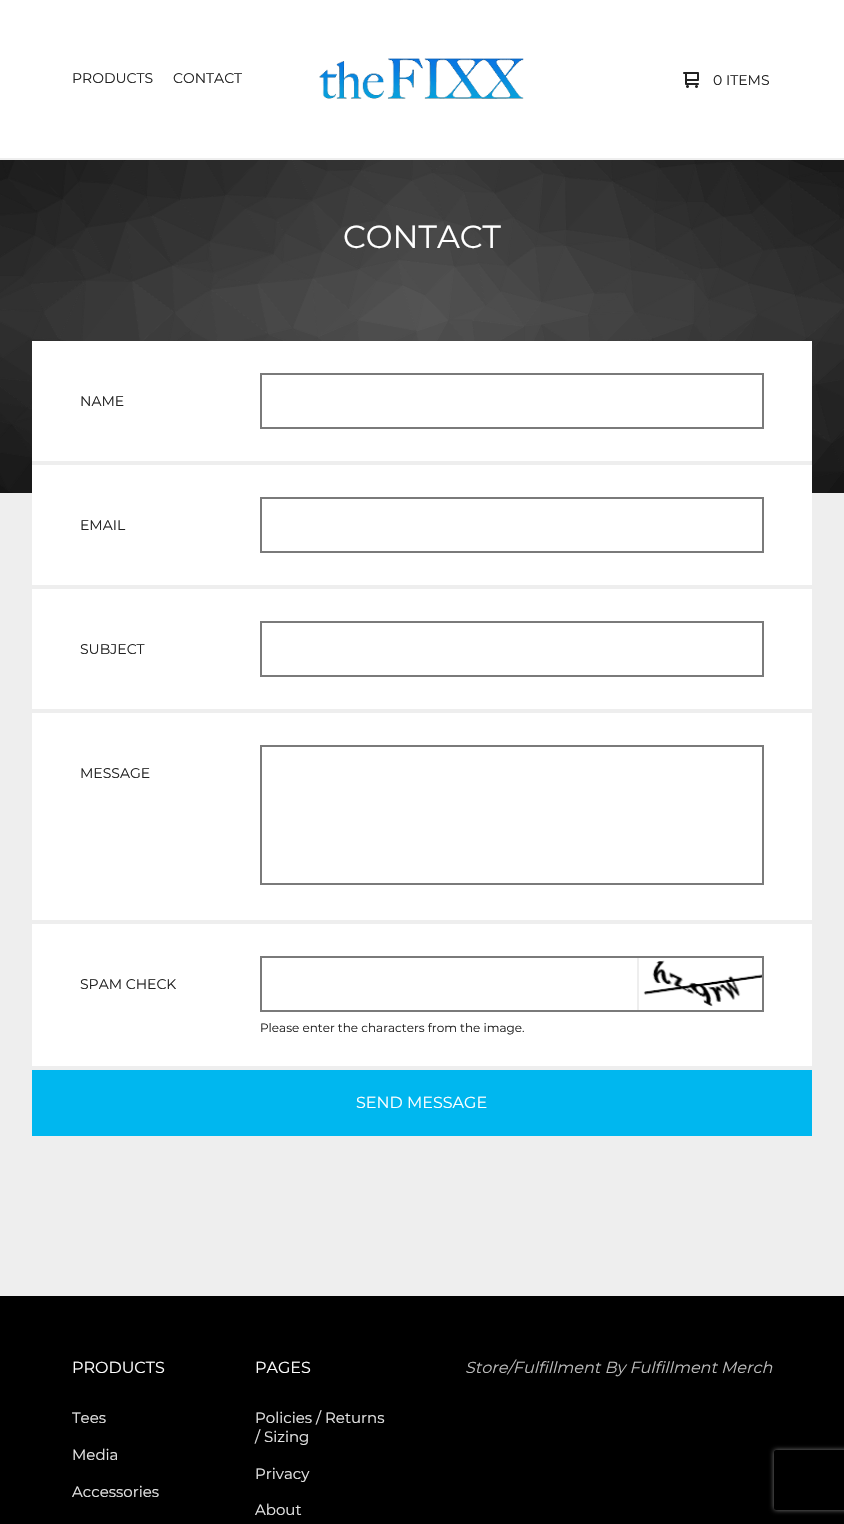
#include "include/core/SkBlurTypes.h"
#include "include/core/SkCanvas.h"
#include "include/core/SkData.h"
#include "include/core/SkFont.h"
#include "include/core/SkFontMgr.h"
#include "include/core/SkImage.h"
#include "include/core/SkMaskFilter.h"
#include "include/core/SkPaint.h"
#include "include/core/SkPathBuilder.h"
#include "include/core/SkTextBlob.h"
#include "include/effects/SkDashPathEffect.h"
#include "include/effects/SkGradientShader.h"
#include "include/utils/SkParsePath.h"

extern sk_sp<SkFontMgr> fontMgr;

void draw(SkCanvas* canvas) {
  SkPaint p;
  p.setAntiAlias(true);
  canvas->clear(SkColorSetRGB(238, 238, 238));
  p.setColor(SK_ColorWHITE);
  canvas->drawRect(SkRect::MakeLTRB(0, 0, 844, 158), p);
  canvas->drawImageRect(SkImages::DeferredFromEncodedData(SkData::MakeFromFileName("images/1.png")), SkRect::MakeLTRB(319, 58, 524, 99), SkSamplingOptions());
  canvas->drawImageRect(SkImages::DeferredFromEncodedData(SkData::MakeFromFileName("images/2.png")), SkRect::MakeLTRB(683, 72, 699, 88), SkSamplingOptions());
  canvas->drawImageRect(SkImages::DeferredFromEncodedData(SkData::MakeFromFileName("images/3.png")), SkRect::MakeLTRB(0, 160, 844, 493), SkSamplingOptions());
  canvas->drawRect(SkRect::MakeLTRB(32, 341, 812, 1066), p);
  p.setColor(SkColorSetRGB(238, 238, 238));
  canvas->drawRect(SkRect::MakeLTRB(32, 461, 812, 465), p);
  p.setStyle(SkPaint::kStroke_Style);
  p.setStrokeWidth(2);
  p.setColor(SkColorSetRGB(122, 122, 122));
  canvas->drawRect(SkRect::MakeLTRB(261, 374, 763, 428), p);
  p.setStyle(SkPaint::kFill_Style);
  p.setColor(SkColorSetRGB(238, 238, 238));
  canvas->drawRect(SkRect::MakeLTRB(32, 585, 812, 589), p);
  p.setStyle(SkPaint::kStroke_Style);
  p.setColor(SkColorSetRGB(122, 122, 122));
  canvas->drawRect(SkRect::MakeLTRB(261, 498, 763, 552), p);
  p.setStyle(SkPaint::kFill_Style);
  p.setColor(SkColorSetRGB(238, 238, 238));
  canvas->drawRect(SkRect::MakeLTRB(32, 709, 812, 713), p);
  p.setStyle(SkPaint::kStroke_Style);
  p.setColor(SkColorSetRGB(122, 122, 122));
  canvas->drawRect(SkRect::MakeLTRB(261, 622, 763, 676), p);
  p.setStyle(SkPaint::kFill_Style);
  p.setColor(SkColorSetRGB(238, 238, 238));
  canvas->drawRect(SkRect::MakeLTRB(32, 920, 812, 924), p);
  p.setStyle(SkPaint::kStroke_Style);
  p.setColor(SkColorSetRGB(122, 122, 122));
  canvas->drawRect(SkRect::MakeLTRB(261, 746, 763, 884), p);
  canvas->drawRect(SkRect::MakeLTRB(261, 957, 763, 1011), p);
  p.setStyle(SkPaint::kFill_Style);
  p.setColor(SkColorSetRGB(238, 238, 238));
  canvas->drawRect(SkRect::MakeLTRB(637, 958, 639, 1010), p);
  canvas->drawImageRect(SkImages::DeferredFromEncodedData(SkData::MakeFromFileName("images/4.png")), SkRect::MakeLTRB(643, 960, 762, 1007), SkSamplingOptions());
  p.setColor(SkColorSetRGB(0, 183, 239));
  canvas->drawRect(SkRect::MakeLTRB(32, 1070, 812, 1136), p);
  p.setColor(SK_ColorBLACK);
  canvas->drawRect(SkRect::MakeLTRB(0, 1296, 844, 1524), p);
  canvas->save();
  canvas->clipPath(SkPathBuilder(SkPathFillType::kEvenOdd).moveTo(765, 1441).lineTo(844, 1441).lineTo(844, 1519).lineTo(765, 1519).close().moveTo(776, 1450).lineTo(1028, 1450).cubicTo(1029, 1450, 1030, 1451, 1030, 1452).lineTo(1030, 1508).cubicTo(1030, 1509, 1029, 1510, 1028, 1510).lineTo(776, 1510).cubicTo(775, 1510, 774, 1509, 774, 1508).lineTo(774, 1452).cubicTo(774, 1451, 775, 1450, 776, 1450).close().detach(), true);
  p.setColor(SkColorSetRGB(128, 128, 128));
  p.setMaskFilter(SkMaskFilter::MakeBlur(kNormal_SkBlurStyle, 2.5f));
  canvas->drawRoundRect(SkRect::MakeLTRB(774, 1450, 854, 1510), 2, 2, p);
  p.setMaskFilter(nullptr);
  canvas->restore();
  SkFont font1(fontMgr->matchFamilyStyle("Montserrat", SkFontStyle::Normal()), 14);
  font1.setSubpixel(true);
  p.setColor(SkColorSetRGB(34, 34, 34));
  canvas->drawString("PRODUCTS", 72, 83, font1, p);
  canvas->drawString("CONTACT", 173, 83, font1, p);
  canvas->drawString("0 ITEMS", 713, 85, font1, p);
  SkFont font2(fontMgr->matchFamilyStyle("Montserrat", SkFontStyle::Normal()), 32);
  font2.setSubpixel(true);
  p.setColor(SK_ColorWHITE);
  canvas->drawString("CONTACT", 343, 248, font2, p);
  p.setColor(SkColorSetRGB(34, 34, 34));
  canvas->drawString("NAME", 80, 406, font1, p);
  canvas->drawString("EMAIL", 80, 530, font1, p);
  canvas->drawString("SUBJECT", 80, 654, font1, p);
  canvas->drawString("MESSAGE", 80, 778, font1, p);
  canvas->drawString("SPAM CHECK", 80, 989, font1, p);
  SkFont font3(fontMgr->matchFamilyStyle("Montserrat", SkFontStyle::Normal()), 12);
  font3.setSubpixel(true);
  canvas->drawString("Please enter the characters from the image.", 260, 1032, font3, p);
  SkFont font4(fontMgr->matchFamilyStyle("Montserrat", SkFontStyle::Normal()), 16);
  font4.setSubpixel(true);
  p.setColor(SK_ColorWHITE);
  canvas->drawString("SEND MESSAGE", 356, 1108, font4, p);
  canvas->drawString("PRODUCTS", 72, 1373, font4, p);
  SkFont font5(fontMgr->matchFamilyStyle("Montserrat", SkFontStyle::Normal()), 15);
  font5.setSubpixel(true);
  p.setColor(SkColorSetRGB(230, 230, 230));
  canvas->drawString("Tees", 72, 1423, font5, p);
  canvas->drawString("Media", 72, 1460, font5, p);
  canvas->drawString("Accessories", 72, 1497, font5, p);
  p.setColor(SK_ColorWHITE);
  canvas->drawString("PAGES", 255, 1373, font4, p);
  p.setColor(SkColorSetRGB(230, 230, 230));
  canvas->drawString("Policies / Returns", 255, 1423, font5, p);
  canvas->drawString("/ Sizing", 255, 1442, font5, p);
  canvas->drawString("Privacy", 255, 1479, font5, p);
  canvas->drawString("About", 255, 1515, font5, p);
  SkFont font6(fontMgr->matchFamilyStyle("Montserrat", SkFontStyle::Italic()), 16);
  font6.setSubpixel(true);
  p.setColor(SkColorSetRGB(187, 187, 187));
  canvas->drawString("Store/Fulfillment By Fulfillment Merch", 465, 1373, font6, p);
}
